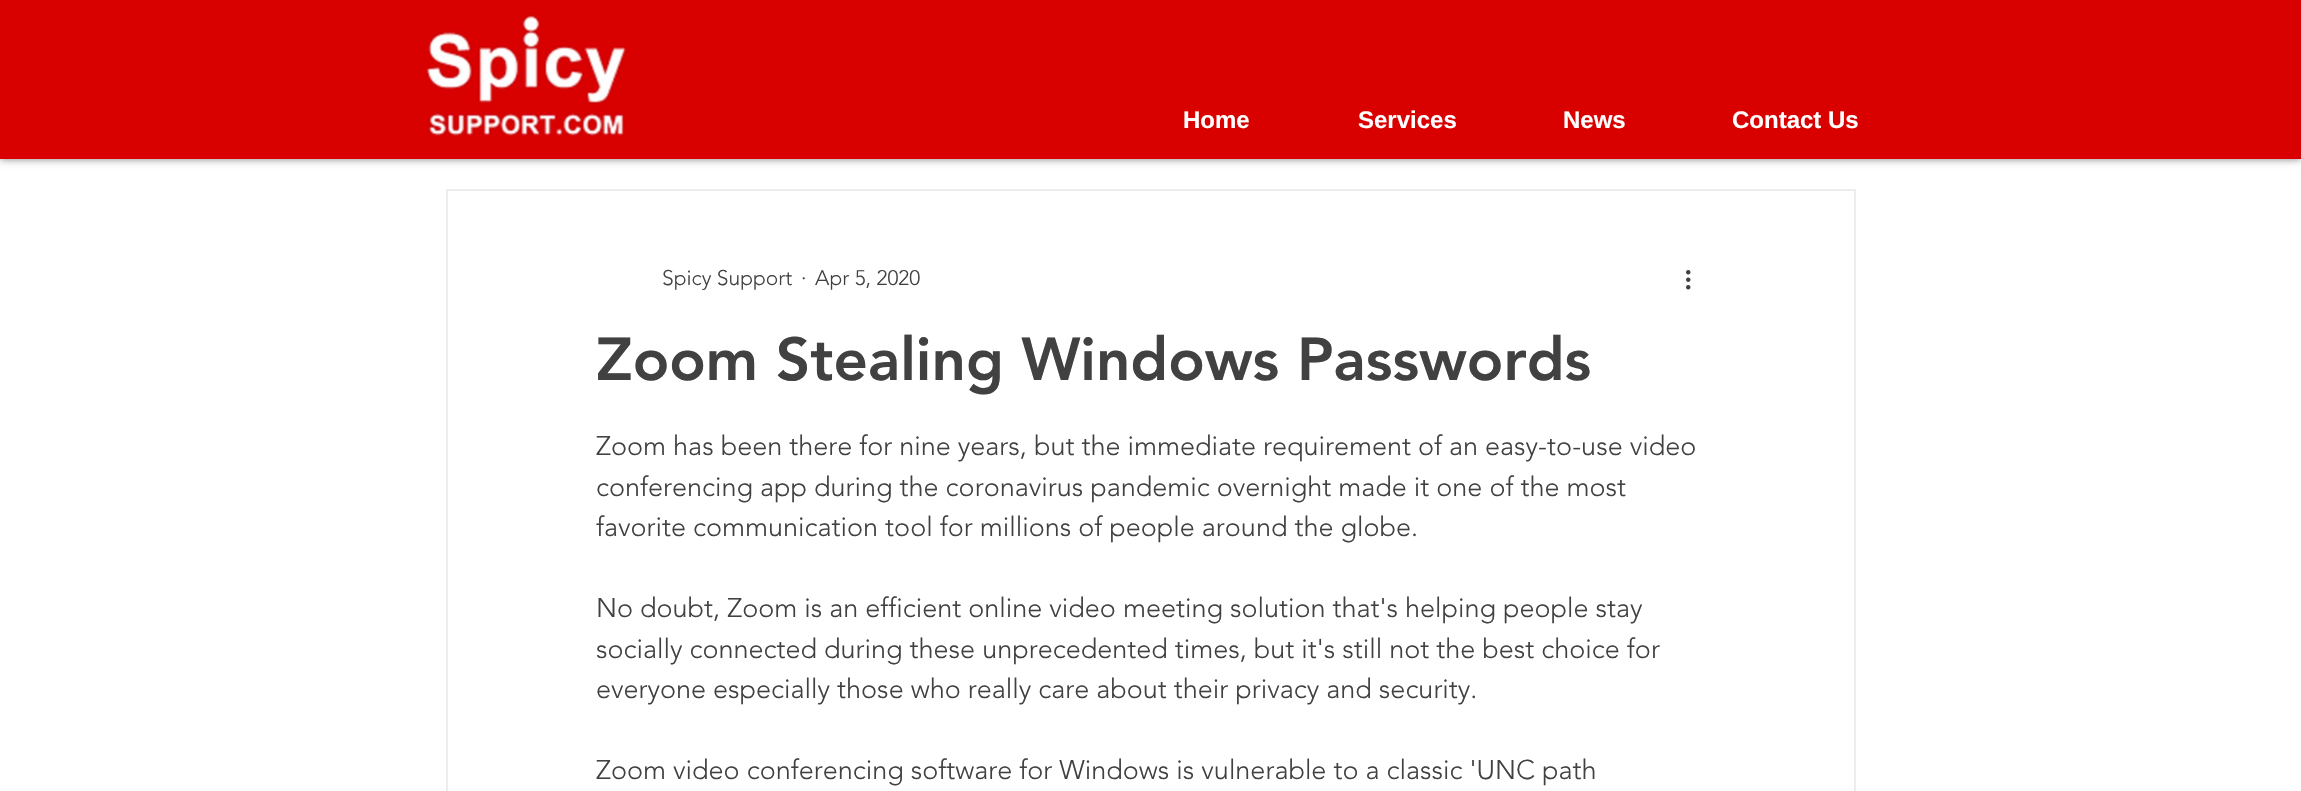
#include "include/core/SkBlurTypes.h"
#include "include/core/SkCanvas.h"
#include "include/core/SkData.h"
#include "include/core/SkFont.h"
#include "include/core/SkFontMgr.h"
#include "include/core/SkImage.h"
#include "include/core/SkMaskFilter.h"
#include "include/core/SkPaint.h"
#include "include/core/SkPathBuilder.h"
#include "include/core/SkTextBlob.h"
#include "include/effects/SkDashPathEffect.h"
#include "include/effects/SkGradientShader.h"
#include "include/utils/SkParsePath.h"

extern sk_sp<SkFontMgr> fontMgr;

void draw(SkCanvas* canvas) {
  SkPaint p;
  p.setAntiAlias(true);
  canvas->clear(SK_ColorWHITE);
  p.setColor(SkColorSetARGB(128, 0, 0, 0));
  p.setMaskFilter(SkMaskFilter::MakeBlur(kNormal_SkBlurStyle, 4));
  canvas->drawRect(SkRect::MakeLTRB(0, 0, 2301, 159), p);
  p.setMaskFilter(nullptr);
  p.setColor(SkColorSetRGB(217, 0, 0));
  canvas->drawRect(SkRect::MakeLTRB(0, 0, 2301, 159), p);
  canvas->drawImageRect(SkImages::DeferredFromEncodedData(SkData::MakeFromFileName("images/1.png")), SkRect::MakeLTRB(426, 14, 626, 137), SkSamplingOptions());
  p.setStyle(SkPaint::kStroke_Style);
  p.setStrokeWidth(2);
  p.setColor(SkColorSetRGB(238, 236, 236));
  canvas->drawRect(SkRect::MakeLTRB(447, 190, 1855, 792), p);
  canvas->drawImageRect(SkImages::DeferredFromEncodedData(SkData::MakeFromFileName("images/2.png")), SkRect::MakeLTRB(1686, 270, 1691, 290), SkSamplingOptions());
  SkFont font1(fontMgr->matchFamilyStyle("Liberation Sans", SkFontStyle::Bold()), 24);
  font1.setSubpixel(true);
  p.setStyle(SkPaint::kFill_Style);
  p.setColor(SK_ColorWHITE);
  canvas->drawString("Home", 1183, 128, font1, p);
  canvas->drawString("Services", 1358, 128, font1, p);
  canvas->drawString("News", 1563, 128, font1, p);
  canvas->drawString("Contact Us", 1732, 128, font1, p);
  SkFont font2(fontMgr->matchFamilyStyle("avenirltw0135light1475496", SkFontStyle(300, SkFontStyle::kNormal_Width, SkFontStyle::kUpright_Slant)), 21);
  font2.setSubpixel(true);
  p.setColor(SkColorSetRGB(65, 65, 65));
  canvas->drawString("Spicy Support", 662, 285, font2, p);
  canvas->drawString("·", 801, 285, font2, p);
  canvas->drawString("Apr 5, 2020", 815, 285, font2, p);
  SkFont font3(fontMgr->matchFamilyStyle("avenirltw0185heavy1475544", SkFontStyle(900, SkFontStyle::kNormal_Width, SkFontStyle::kUpright_Slant)), 60);
  font3.setSubpixel(true);
  canvas->drawString("Zoom Stealing Windows Passwords", 596, 380, font3, p);
  SkFont font4(fontMgr->matchFamilyStyle("avenirltw0135light1475496", SkFontStyle(300, SkFontStyle::kNormal_Width, SkFontStyle::kUpright_Slant)), 27);
  font4.setSubpixel(true);
  canvas->drawString("Zoom has been there for nine years, but the immediate requirement of an easy-to-use video", 596, 455, font4, p);
  canvas->drawString("conferencing app during the coronavirus pandemic overnight made it one of the most", 596, 496, font4, p);
  canvas->drawString("favorite communication tool for millions of people around the globe.", 596, 536, font4, p);
  canvas->drawString("No doubt, Zoom is an efficient online video meeting solution that's helping people stay", 596, 617, font4, p);
  canvas->drawString("socially connected during these unprecedented times, but it's still not the best choice for", 596, 658, font4, p);
  canvas->drawString("everyone especially those who really care about their privacy and security.", 596, 698, font4, p);
  canvas->drawString("Zoom video conferencing software for Windows is vulnerable to a classic 'UNC path", 596, 779, font4, p);
}
